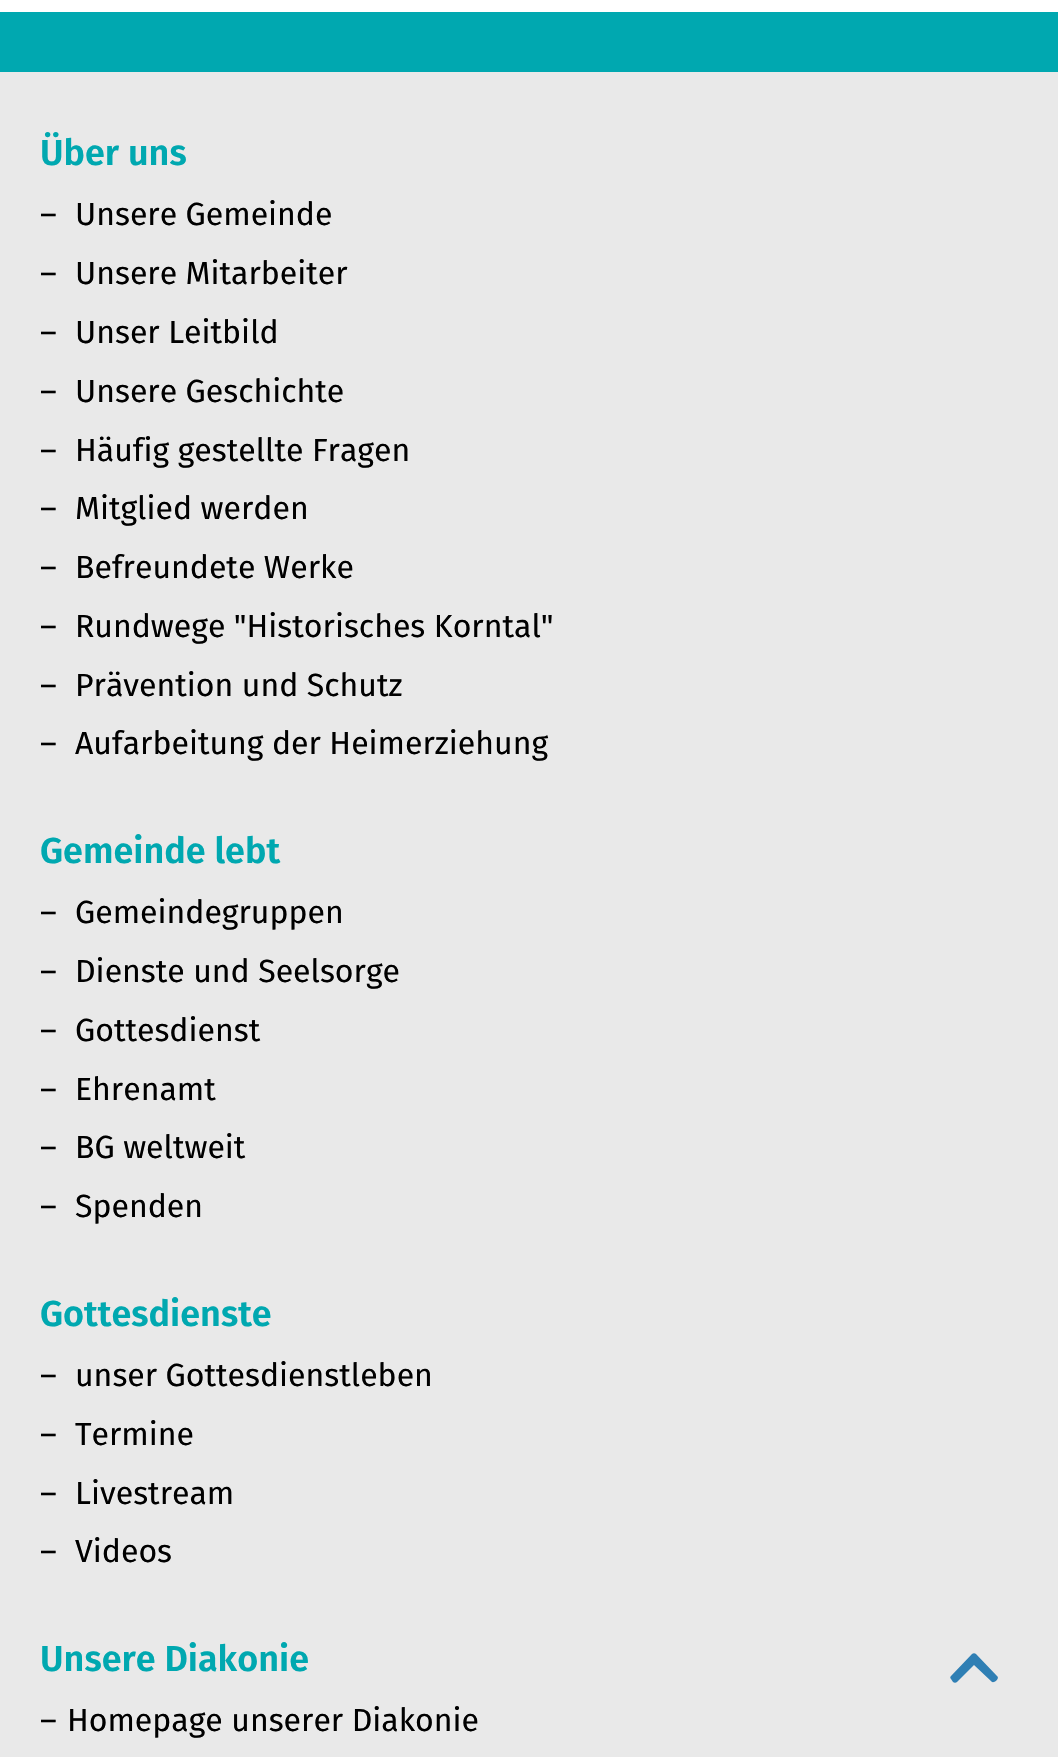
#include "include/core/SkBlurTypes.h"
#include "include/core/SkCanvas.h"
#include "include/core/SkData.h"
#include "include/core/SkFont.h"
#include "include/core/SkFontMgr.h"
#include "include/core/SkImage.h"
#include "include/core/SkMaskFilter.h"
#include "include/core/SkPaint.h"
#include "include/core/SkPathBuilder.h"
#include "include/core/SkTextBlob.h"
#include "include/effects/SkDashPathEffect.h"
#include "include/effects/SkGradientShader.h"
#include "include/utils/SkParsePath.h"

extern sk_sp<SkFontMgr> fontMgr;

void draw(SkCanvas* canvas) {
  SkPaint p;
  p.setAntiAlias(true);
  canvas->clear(SK_ColorWHITE);
  p.setColor(SkColorSetRGB(233, 233, 233));
  canvas->drawRect(SkRect::MakeLTRB(0, 72, 1058, 1757), p);
  p.setColor(SkColorSetRGB(0, 168, 176));
  canvas->drawRect(SkRect::MakeLTRB(0, 12, 1058, 72), p);
  p.setColor(SkColorSetRGB(47, 127, 180));
  canvas->drawPath(SkPathBuilder().moveTo(997, 1676).cubicTo(1000, 1678, 995, 1683, 992, 1682).lineTo(974, 1665).lineTo(957, 1682).cubicTo(956, 1683, 954, 1683, 953, 1682).lineTo(951, 1679).cubicTo(950, 1678, 950, 1677, 951, 1676).lineTo(972, 1654).cubicTo(973, 1653, 975, 1653, 976, 1654).close().detach(), p);
  SkFont font1(fontMgr->matchFamilyStyle("Fira Sans", SkFontStyle(600, SkFontStyle::kNormal_Width, SkFontStyle::kUpright_Slant)), 36);
  font1.setSubpixel(true);
  p.setColor(SkColorSetRGB(0, 168, 176));
  canvas->drawString("Über uns", 40, 165, font1, p);
  SkFont font2(fontMgr->matchFamilyStyle("Fira Sans", SkFontStyle::Normal()), 32);
  font2.setSubpixel(true);
  p.setColor(SK_ColorBLACK);
  canvas->drawString("–", 40, 225, font2, p);
  canvas->drawString("Unsere Gemeinde", 75, 225, font2, p);
  canvas->drawString("–", 40, 284, font2, p);
  canvas->drawString("Unsere Mitarbeiter", 75, 284, font2, p);
  canvas->drawString("–", 40, 343, font2, p);
  canvas->drawString("Unser Leitbild", 75, 343, font2, p);
  canvas->drawString("–", 40, 402, font2, p);
  canvas->drawString("Unsere Geschichte", 75, 402, font2, p);
  canvas->drawString("–", 40, 461, font2, p);
  canvas->drawString("Häufig gestellte Fragen", 75, 461, font2, p);
  canvas->drawString("–", 40, 519, font2, p);
  canvas->drawString("Mitglied werden", 75, 519, font2, p);
  canvas->drawString("–", 40, 578, font2, p);
  canvas->drawString("Befreundete Werke", 75, 578, font2, p);
  canvas->drawString("–", 40, 637, font2, p);
  canvas->drawString("Rundwege \"Historisches Korntal\"", 75, 637, font2, p);
  canvas->drawString("–", 40, 696, font2, p);
  canvas->drawString("Prävention und Schutz", 75, 696, font2, p);
  canvas->drawString("–", 40, 754, font2, p);
  canvas->drawString("Aufarbeitung der Heimerziehung", 75, 754, font2, p);
  p.setColor(SkColorSetRGB(0, 168, 176));
  canvas->drawString("Gemeinde lebt", 40, 863, font1, p);
  p.setColor(SK_ColorBLACK);
  canvas->drawString("–", 40, 923, font2, p);
  canvas->drawString("Gemeindegruppen", 75, 923, font2, p);
  canvas->drawString("–", 40, 982, font2, p);
  canvas->drawString("Dienste und Seelsorge", 75, 982, font2, p);
  canvas->drawString("–", 40, 1041, font2, p);
  canvas->drawString("Gottesdienst", 75, 1041, font2, p);
  canvas->drawString("–", 40, 1100, font2, p);
  canvas->drawString("Ehrenamt", 75, 1100, font2, p);
  canvas->drawString("–", 40, 1158, font2, p);
  canvas->drawString("BG weltweit", 75, 1158, font2, p);
  canvas->drawString("–", 40, 1217, font2, p);
  canvas->drawString("Spenden", 75, 1217, font2, p);
  p.setColor(SkColorSetRGB(0, 168, 176));
  canvas->drawString("Gottesdienste", 40, 1326, font1, p);
  p.setColor(SK_ColorBLACK);
  canvas->drawString("–", 40, 1386, font2, p);
  canvas->drawString("unser Gottesdienstleben", 75, 1386, font2, p);
  canvas->drawString("–", 40, 1445, font2, p);
  canvas->drawString("Termine", 75, 1445, font2, p);
  canvas->drawString("–", 40, 1504, font2, p);
  canvas->drawString("Livestream", 75, 1504, font2, p);
  canvas->drawString("–", 40, 1562, font2, p);
  canvas->drawString("Videos", 75, 1562, font2, p);
  p.setColor(SkColorSetRGB(0, 168, 176));
  canvas->drawString("Unsere Diakonie", 40, 1671, font1, p);
  p.setColor(SK_ColorBLACK);
  canvas->drawString("–", 40, 1731, font2, p);
  canvas->drawString("Homepage unserer Diakonie", 67, 1731, font2, p);
}
